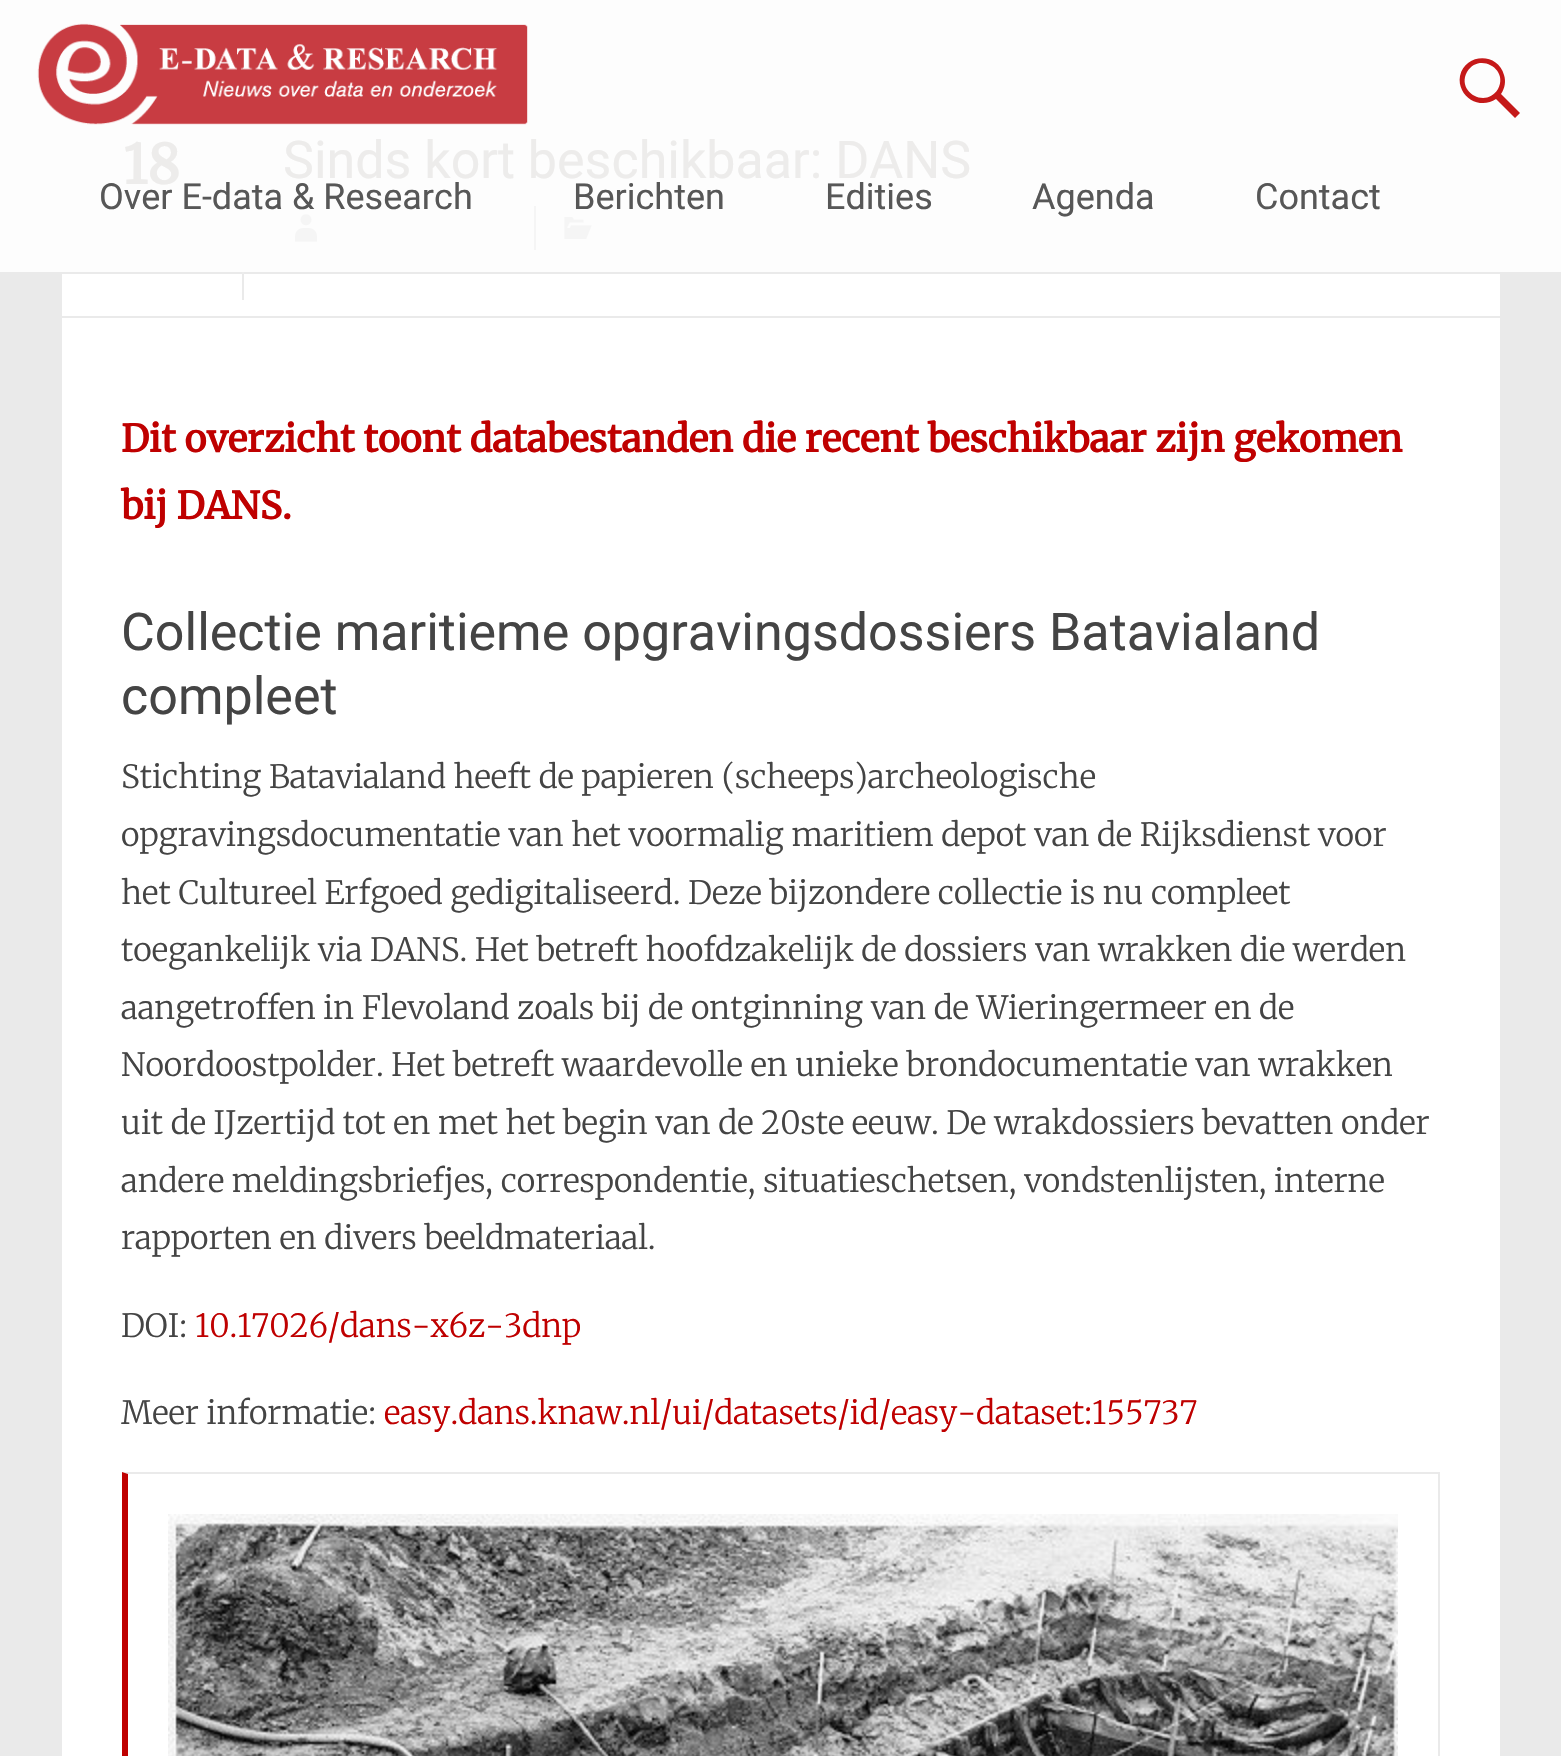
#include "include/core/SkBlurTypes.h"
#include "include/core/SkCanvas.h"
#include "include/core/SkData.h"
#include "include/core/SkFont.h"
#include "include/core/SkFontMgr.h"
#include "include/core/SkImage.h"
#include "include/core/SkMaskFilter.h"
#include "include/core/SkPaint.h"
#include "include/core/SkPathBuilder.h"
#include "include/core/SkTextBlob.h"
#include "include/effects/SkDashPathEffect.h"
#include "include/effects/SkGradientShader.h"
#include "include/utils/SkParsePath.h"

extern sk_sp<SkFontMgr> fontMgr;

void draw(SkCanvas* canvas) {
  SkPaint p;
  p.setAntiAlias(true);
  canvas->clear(SkColorSetRGB(234, 234, 234));
  p.setColor(SkColorSetRGB(253, 253, 253));
  canvas->drawRect(SkRect::MakeLTRB(0, 0, 1561, 272), p);
  p.setColor(SK_ColorWHITE);
  canvas->drawRect(SkRect::MakeLTRB(62, 274, 1500, 1756), p);
  p.setColor(SkColorSetRGB(234, 234, 234));
  canvas->drawRect(SkRect::MakeLTRB(62, 316, 1500, 318), p);
  canvas->drawRect(SkRect::MakeLTRB(242, 274, 244, 300), p);
  p.setColor(SkColorSetRGB(253, 253, 253));
  canvas->drawRect(SkRect::MakeLTRB(242, 272, 244, 274), p);
  canvas->drawImageRect(SkImages::DeferredFromEncodedData(SkData::MakeFromFileName("images/1.png")), SkRect::MakeLTRB(295, 214, 317, 242), SkSamplingOptions());
  p.setColor(SkColorSetRGB(245, 245, 245));
  canvas->drawRect(SkRect::MakeLTRB(534, 206, 536, 250), p);
  canvas->drawImageRect(SkImages::DeferredFromEncodedData(SkData::MakeFromFileName("images/2.png")), SkRect::MakeLTRB(564, 217, 592, 239), SkSamplingOptions());
  p.setColor(SkColorSetRGB(234, 234, 234));
  canvas->drawPath(SkPathBuilder().moveTo(122, 1472).lineTo(1440, 1472).lineTo(1438, 1474).lineTo(128, 1474).close().detach(), p);
  canvas->drawRect(SkRect::MakeLTRB(1438, 1472, 1440, 1756), p);
  p.setColor(SkColorSetRGB(191, 0, 0));
  canvas->drawPath(SkPathBuilder().moveTo(122, 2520).lineTo(122, 1472).lineTo(128, 1474).lineTo(128, 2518).close().detach(), p);
  canvas->drawImageRect(SkImages::DeferredFromEncodedData(SkData::MakeFromFileName("images/3.png")), SkRect::MakeLTRB(168, 1514, 1398, 1756), SkSamplingOptions());
  p.setColor(SkColorSetRGB(236, 236, 236));
  canvas->drawRect(SkRect::MakeLTRB(242, 272, 244, 274), p);
  canvas->drawImageRect(SkImages::DeferredFromEncodedData(SkData::MakeFromFileName("images/4.png")), SkRect::MakeLTRB(37, 23, 528, 125), SkSamplingOptions());
  p.setColor(SkColorSetRGB(197, 25, 25));
  canvas->drawPath(SkPathBuilder().moveTo(1520, 113).lineTo(1515, 118).lineTo(1496, 99).cubicTo(1485, 107, 1468, 103, 1462, 90).cubicTo(1460, 86, 1459, 81, 1460, 76).cubicTo(1465, 53, 1498, 52, 1504, 75).cubicTo(1506, 81, 1505, 88, 1501, 94).close().moveTo(1467, 72).cubicTo(1456, 92, 1486, 109, 1498, 89).cubicTo(1509, 69, 1479, 52, 1467, 72).close().detach(), p);
  SkFont font1(fontMgr->matchFamilyStyle("Merriweather", SkFontStyle::Bold()), 54);
  font1.setSubpixel(true);
  p.setColor(SkColorSetRGB(237, 236, 235));
  canvas->drawString("18", 123, 184, font1, p);
  SkFont font2(fontMgr->matchFamilyStyle("Roboto", SkFontStyle::Normal()), 52);
  font2.setSubpixel(true);
  canvas->drawString("Sinds kort beschikbaar: DANS", 283, 178, font2, p);
  SkFont font3(fontMgr->matchFamilyStyle("Merriweather", SkFontStyle::Bold()), 37.35f);
  font3.setSubpixel(true);
  p.setColor(SkColorSetRGB(191, 0, 0));
  canvas->drawString("Dit overzicht toont databestanden die recent beschikbaar zijn gekomen", 121, 452, font3, p);
  canvas->drawString("bij DANS.", 121, 519, font3, p);
  p.setColor(SkColorSetRGB(68, 68, 68));
  canvas->drawString("Collectie maritieme opgravingsdossiers Batavialand", 121, 650, font2, p);
  canvas->drawString("compleet", 121, 714, font2, p);
  SkFont font4(fontMgr->matchFamilyStyle("Merriweather", SkFontStyle(300, SkFontStyle::kNormal_Width, SkFontStyle::kUpright_Slant)), 32);
  font4.setSubpixel(true);
  canvas->drawString("Stichting Batavialand heeft de papieren (scheeps)archeologische", 121, 788, font4, p);
  canvas->drawString("opgravingsdocumentatie van het voormalig maritiem depot van de Rijksdienst voor", 121, 846, font4, p);
  canvas->drawString("het Cultureel Erfgoed gedigitaliseerd. Deze bijzondere collectie is nu compleet", 121, 904, font4, p);
  canvas->drawString("toegankelijk via DANS. Het betreft hoofdzakelijk de dossiers van wrakken die werden", 121, 961, font4, p);
  canvas->drawString("aangetroffen in Flevoland zoals bij de ontginning van de Wieringermeer en de", 121, 1019, font4, p);
  canvas->drawString("Noordoostpolder. Het betreft waardevolle en unieke brondocumentatie van wrakken", 121, 1076, font4, p);
  canvas->drawString("uit de IJzertijd tot en met het begin van de 20ste eeuw. De wrakdossiers bevatten onder", 121, 1134, font4, p);
  canvas->drawString("andere meldingsbriefjes, correspondentie, situatieschetsen, vondstenlijsten, interne", 121, 1192, font4, p);
  canvas->drawString("rapporten en divers beeldmateriaal.", 121, 1249, font4, p);
  canvas->drawString("DOI:", 121, 1337, font4, p);
  p.setColor(SkColorSetRGB(191, 0, 0));
  canvas->drawString("10.17026/dans-x6z-3dnp", 195, 1337, font4, p);
  p.setColor(SkColorSetRGB(68, 68, 68));
  canvas->drawString("Meer informatie:", 121, 1424, font4, p);
  p.setColor(SkColorSetRGB(191, 0, 0));
  canvas->drawString("easy.dans.knaw.nl/ui/datasets/id/easy-dataset:155737", 384, 1424, font4, p);
  SkFont font5(fontMgr->matchFamilyStyle("Roboto", SkFontStyle::Normal()), 36);
  font5.setSubpixel(true);
  p.setColor(SkColorSetRGB(87, 87, 87));
  canvas->drawString("Over E-data & Research", 99, 209, font5, p);
  canvas->drawString("Berichten", 573, 209, font5, p);
  canvas->drawString("Edities", 825, 209, font5, p);
  canvas->drawString("Agenda", 1032, 209, font5, p);
  canvas->drawString("Contact", 1255, 209, font5, p);
}
